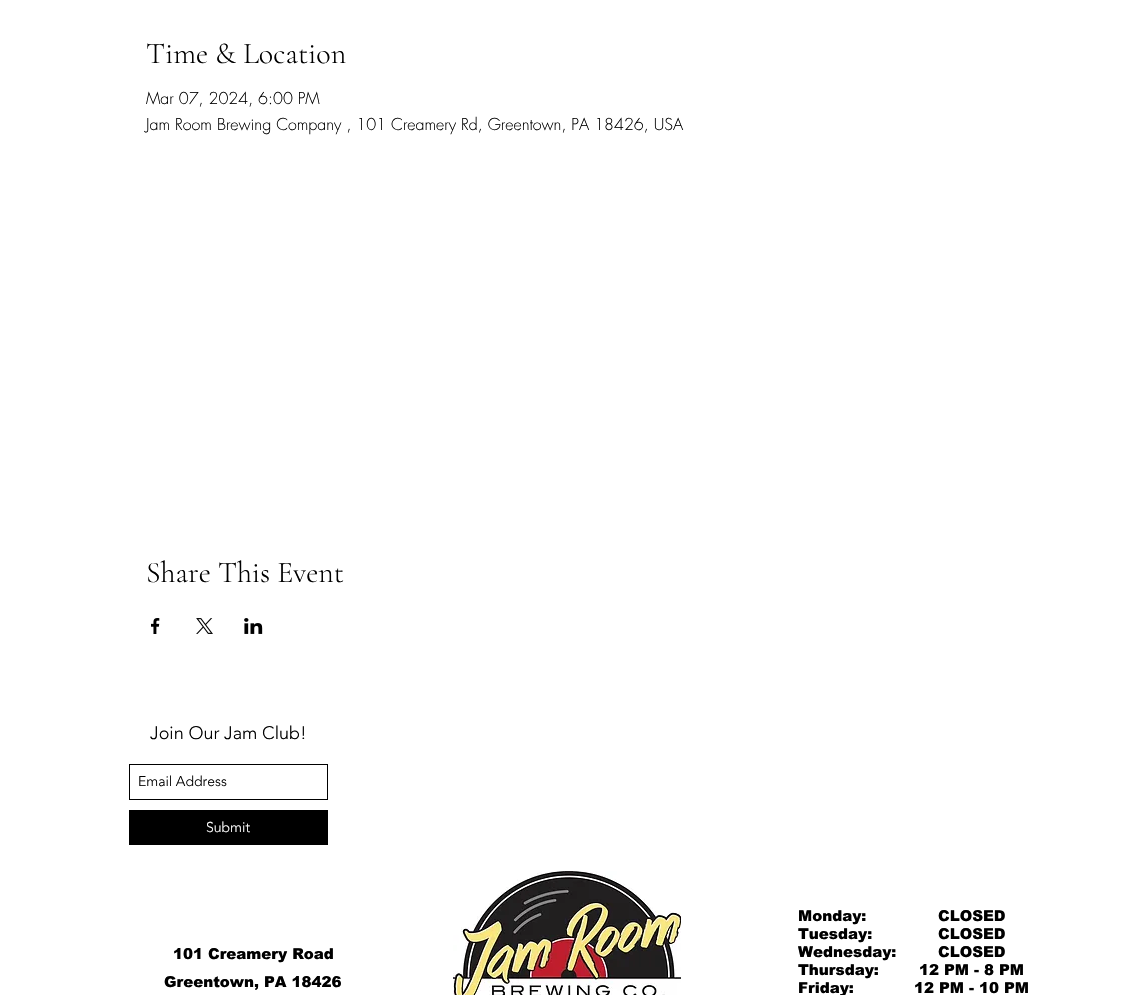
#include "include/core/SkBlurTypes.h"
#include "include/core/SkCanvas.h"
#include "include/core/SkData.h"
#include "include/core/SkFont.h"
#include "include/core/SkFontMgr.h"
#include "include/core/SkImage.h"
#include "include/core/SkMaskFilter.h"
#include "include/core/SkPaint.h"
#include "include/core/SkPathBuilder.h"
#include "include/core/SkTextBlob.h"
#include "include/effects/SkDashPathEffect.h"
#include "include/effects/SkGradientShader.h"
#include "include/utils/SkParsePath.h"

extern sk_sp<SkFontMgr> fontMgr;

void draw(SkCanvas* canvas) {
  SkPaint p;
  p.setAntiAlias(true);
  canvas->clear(SK_ColorWHITE);
  canvas->drawImageRect(SkImages::DeferredFromEncodedData(SkData::MakeFromFileName("images/1.png")), SkRect::MakeLTRB(151, 618, 160, 634), SkSamplingOptions());
  canvas->drawImageRect(SkImages::DeferredFromEncodedData(SkData::MakeFromFileName("images/2.png")), SkRect::MakeLTRB(196, 618, 213, 634), SkSamplingOptions());
  canvas->drawImageRect(SkImages::DeferredFromEncodedData(SkData::MakeFromFileName("images/3.png")), SkRect::MakeLTRB(244, 618, 263, 634), SkSamplingOptions());
  p.setStyle(SkPaint::kStroke_Style);
  p.setStrokeWidth(1);
  p.setColor(SK_ColorBLACK);
  canvas->drawRect(SkRect::MakeLTRB(129.5f, 764.5f, 327.5f, 799.5f), p);
  p.setStyle(SkPaint::kFill_Style);
  canvas->drawRect(SkRect::MakeLTRB(129, 810, 328, 845), p);
  canvas->drawImageRect(SkImages::DeferredFromEncodedData(SkData::MakeFromFileName("images/4.png")), SkRect::MakeLTRB(453, 871, 681, 995), SkSamplingOptions());
  SkFont font1(fontMgr->matchFamilyStyle("Cormorant Garamond", SkFontStyle(300, SkFontStyle::kNormal_Width, SkFontStyle::kUpright_Slant)), 30);
  font1.setSubpixel(true);
  canvas->drawString("Time & Location", 146, 63, font1, p);
  SkFont font2(fontMgr->matchFamilyStyle("futura", SkFontStyle(300, SkFontStyle::kNormal_Width, SkFontStyle::kUpright_Slant)), 16);
  font2.setSubpixel(true);
  canvas->drawString("Mar 07, 2024, 6:00 PM", 146, 104, font2, p);
  canvas->drawString("Jam Room Brewing Company , 101 Creamery Rd, Greentown, PA 18426, USA", 146, 130, font2, p);
  canvas->drawString("Share This Event", 146, 582, font1, p);
  SkFont font3(fontMgr->matchFamilyStyle("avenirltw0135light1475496", SkFontStyle(300, SkFontStyle::kNormal_Width, SkFontStyle::kUpright_Slant)), 18);
  font3.setSubpixel(true);
  canvas->drawString("Join Our Jam Club!", 150, 739, font3, p);
  SkFont font4(fontMgr->matchFamilyStyle("avenirltw0135light1475496", SkFontStyle(300, SkFontStyle::kNormal_Width, SkFontStyle::kUpright_Slant)), 14);
  font4.setSubpixel(true);
  canvas->drawString("Email Address", 138, 786, font4, p);
  p.setColor(SK_ColorWHITE);
  canvas->drawString("Submit", 206, 832, font4, p);
  SkFont font5(fontMgr->matchFamilyStyle("arial", SkFontStyle(900, SkFontStyle::kNormal_Width, SkFontStyle::kUpright_Slant)), 15);
  font5.setSubpixel(true);
  p.setColor(SK_ColorBLACK);
  canvas->drawString("101 Creamery Road", 173, 959, font5, p);
  canvas->drawString("Greentown, PA 18426", 164, 987, font5, p);
  canvas->drawString("Monday:", 798, 921, font5, p);
  canvas->drawString("Tuesday:", 798, 939, font5, p);
  canvas->drawString("Wednesday:", 798, 957, font5, p);
  canvas->drawString("Thursday:", 798, 975, font5, p);
  canvas->drawString("Friday:", 798, 993, font5, p);
  canvas->drawString("CLOSED", 938, 921, font5, p);
  canvas->drawString("CLOSED", 938, 939, font5, p);
  canvas->drawString("CLOSED", 938, 957, font5, p);
  canvas->drawString("12 PM - 8 PM", 919, 975, font5, p);
  canvas->drawString("12 PM - 10 PM", 914, 993, font5, p);
}
